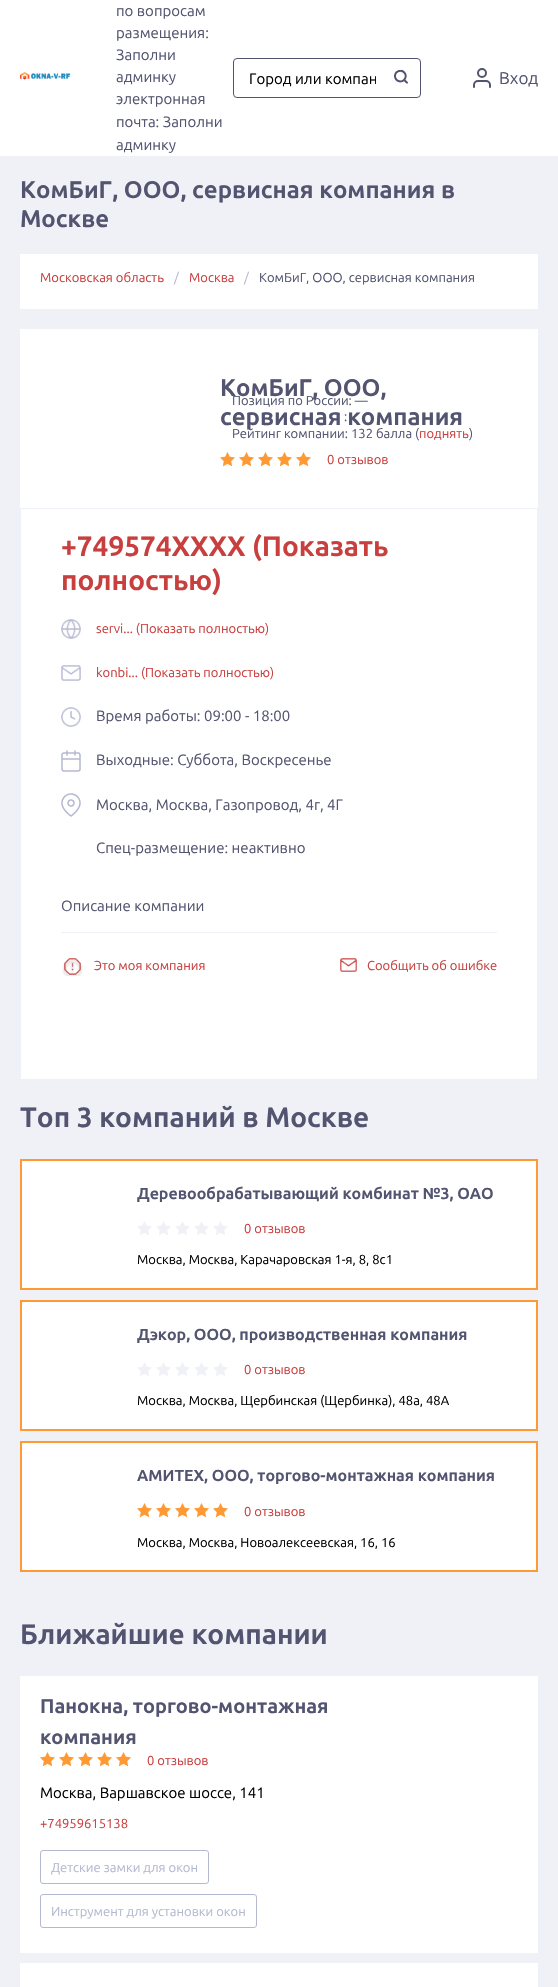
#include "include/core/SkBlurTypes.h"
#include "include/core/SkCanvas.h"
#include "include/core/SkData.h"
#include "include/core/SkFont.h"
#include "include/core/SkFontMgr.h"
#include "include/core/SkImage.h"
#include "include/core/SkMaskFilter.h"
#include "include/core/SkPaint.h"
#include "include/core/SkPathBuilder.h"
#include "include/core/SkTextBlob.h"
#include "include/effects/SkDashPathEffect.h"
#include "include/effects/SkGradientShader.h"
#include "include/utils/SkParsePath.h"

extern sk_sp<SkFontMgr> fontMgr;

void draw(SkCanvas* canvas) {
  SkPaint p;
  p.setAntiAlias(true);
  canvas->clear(SkColorSetRGB(240, 241, 247));
  p.setColor(SK_ColorWHITE);
  canvas->drawRect(SkRect::MakeLTRB(0, 0, 558, 156), p);
  canvas->drawImageRect(SkImages::DeferredFromEncodedData(SkData::MakeFromFileName("images/1.png")), SkRect::MakeLTRB(20, 72, 71, 80), SkSamplingOptions());
  p.setStyle(SkPaint::kStroke_Style);
  p.setStrokeWidth(1);
  p.setColor(SkColorSetRGB(82, 84, 111));
  canvas->drawRoundRect(SkRect::MakeLTRB(233.5f, 58.5f, 420.5f, 97.5f), 3.5f, 3.5f, p);
  canvas->drawImageRect(SkImages::DeferredFromEncodedData(SkData::MakeFromFileName("images/2.png")), SkRect::MakeLTRB(394, 69, 408, 84), SkSamplingOptions());
  canvas->drawImageRect(SkImages::DeferredFromEncodedData(SkData::MakeFromFileName("images/3.png")), SkRect::MakeLTRB(473, 68, 491, 88), SkSamplingOptions());
  p.setStyle(SkPaint::kFill_Style);
  p.setColor(SK_ColorWHITE);
  canvas->drawRect(SkRect::MakeLTRB(20, 254, 538, 309), p);
  canvas->drawRect(SkRect::MakeLTRB(20, 329, 538, 508), p);
  canvas->drawImageRect(SkImages::DeferredFromEncodedData(SkData::MakeFromFileName("images/4.png")), SkRect::MakeLTRB(220, 452, 235, 467), SkSamplingOptions());
  canvas->drawImageRect(SkImages::DeferredFromEncodedData(SkData::MakeFromFileName("images/4.png")), SkRect::MakeLTRB(239, 452, 254, 467), SkSamplingOptions());
  canvas->drawImageRect(SkImages::DeferredFromEncodedData(SkData::MakeFromFileName("images/4.png")), SkRect::MakeLTRB(258, 452, 273, 467), SkSamplingOptions());
  canvas->drawImageRect(SkImages::DeferredFromEncodedData(SkData::MakeFromFileName("images/4.png")), SkRect::MakeLTRB(277, 452, 292, 467), SkSamplingOptions());
  canvas->drawImageRect(SkImages::DeferredFromEncodedData(SkData::MakeFromFileName("images/4.png")), SkRect::MakeLTRB(296, 452, 311, 467), SkSamplingOptions());
  canvas->drawRect(SkRect::MakeLTRB(21, 509, 537, 1079), p);
  canvas->drawImageRect(SkImages::DeferredFromEncodedData(SkData::MakeFromFileName("images/5.png")), SkRect::MakeLTRB(61, 619, 81, 639), SkSamplingOptions());
  canvas->drawImageRect(SkImages::DeferredFromEncodedData(SkData::MakeFromFileName("images/6.png")), SkRect::MakeLTRB(61, 665, 81, 681), SkSamplingOptions());
  canvas->drawImageRect(SkImages::DeferredFromEncodedData(SkData::MakeFromFileName("images/7.png")), SkRect::MakeLTRB(61, 707, 81, 727), SkSamplingOptions());
  canvas->drawImageRect(SkImages::DeferredFromEncodedData(SkData::MakeFromFileName("images/8.png")), SkRect::MakeLTRB(61, 750, 81, 772), SkSamplingOptions());
  canvas->drawImageRect(SkImages::DeferredFromEncodedData(SkData::MakeFromFileName("images/9.png")), SkRect::MakeLTRB(61, 793, 81, 817), SkSamplingOptions());
  p.setColor(SkColorSetRGB(240, 241, 247));
  canvas->drawRect(SkRect::MakeLTRB(61, 932, 497, 933), p);
  canvas->drawImageRect(SkImages::DeferredFromEncodedData(SkData::MakeFromFileName("images/10.png")), SkRect::MakeLTRB(62, 958, 83, 976), SkSamplingOptions());
  canvas->drawImageRect(SkImages::DeferredFromEncodedData(SkData::MakeFromFileName("images/11.png")), SkRect::MakeLTRB(340, 958, 357, 972), SkSamplingOptions());
  p.setColor(SK_ColorWHITE);
  canvas->drawRect(SkRect::MakeLTRB(21, 1160, 537, 1289), p);
  p.setStyle(SkPaint::kStroke_Style);
  p.setStrokeWidth(2);
  p.setColor(SkColorSetRGB(255, 153, 51));
  canvas->drawRect(SkRect::MakeLTRB(21, 1160, 537, 1289), p);
  canvas->drawImageRect(SkImages::DeferredFromEncodedData(SkData::MakeFromFileName("images/12.png")), SkRect::MakeLTRB(137, 1221, 152, 1235), SkSamplingOptions());
  canvas->drawImageRect(SkImages::DeferredFromEncodedData(SkData::MakeFromFileName("images/12.png")), SkRect::MakeLTRB(156, 1221, 171, 1235), SkSamplingOptions());
  canvas->drawImageRect(SkImages::DeferredFromEncodedData(SkData::MakeFromFileName("images/12.png")), SkRect::MakeLTRB(175, 1221, 190, 1235), SkSamplingOptions());
  canvas->drawImageRect(SkImages::DeferredFromEncodedData(SkData::MakeFromFileName("images/12.png")), SkRect::MakeLTRB(194, 1221, 209, 1235), SkSamplingOptions());
  canvas->drawImageRect(SkImages::DeferredFromEncodedData(SkData::MakeFromFileName("images/12.png")), SkRect::MakeLTRB(213, 1221, 228, 1235), SkSamplingOptions());
  p.setStyle(SkPaint::kFill_Style);
  p.setColor(SK_ColorWHITE);
  canvas->drawRect(SkRect::MakeLTRB(21, 1301, 537, 1430), p);
  p.setStyle(SkPaint::kStroke_Style);
  p.setColor(SkColorSetRGB(255, 153, 51));
  canvas->drawRect(SkRect::MakeLTRB(21, 1301, 537, 1430), p);
  canvas->drawImageRect(SkImages::DeferredFromEncodedData(SkData::MakeFromFileName("images/12.png")), SkRect::MakeLTRB(137, 1362, 152, 1376), SkSamplingOptions());
  canvas->drawImageRect(SkImages::DeferredFromEncodedData(SkData::MakeFromFileName("images/12.png")), SkRect::MakeLTRB(156, 1362, 171, 1376), SkSamplingOptions());
  canvas->drawImageRect(SkImages::DeferredFromEncodedData(SkData::MakeFromFileName("images/12.png")), SkRect::MakeLTRB(175, 1362, 190, 1376), SkSamplingOptions());
  canvas->drawImageRect(SkImages::DeferredFromEncodedData(SkData::MakeFromFileName("images/12.png")), SkRect::MakeLTRB(194, 1362, 209, 1376), SkSamplingOptions());
  canvas->drawImageRect(SkImages::DeferredFromEncodedData(SkData::MakeFromFileName("images/12.png")), SkRect::MakeLTRB(213, 1362, 228, 1376), SkSamplingOptions());
  p.setStyle(SkPaint::kFill_Style);
  p.setColor(SK_ColorWHITE);
  canvas->drawRect(SkRect::MakeLTRB(21, 1442, 537, 1571), p);
  p.setStyle(SkPaint::kStroke_Style);
  p.setColor(SkColorSetRGB(255, 153, 51));
  canvas->drawRect(SkRect::MakeLTRB(21, 1442, 537, 1571), p);
  canvas->drawImageRect(SkImages::DeferredFromEncodedData(SkData::MakeFromFileName("images/4.png")), SkRect::MakeLTRB(137, 1503, 152, 1518), SkSamplingOptions());
  canvas->drawImageRect(SkImages::DeferredFromEncodedData(SkData::MakeFromFileName("images/4.png")), SkRect::MakeLTRB(156, 1503, 171, 1518), SkSamplingOptions());
  canvas->drawImageRect(SkImages::DeferredFromEncodedData(SkData::MakeFromFileName("images/4.png")), SkRect::MakeLTRB(175, 1503, 190, 1518), SkSamplingOptions());
  canvas->drawImageRect(SkImages::DeferredFromEncodedData(SkData::MakeFromFileName("images/4.png")), SkRect::MakeLTRB(194, 1503, 209, 1518), SkSamplingOptions());
  canvas->drawImageRect(SkImages::DeferredFromEncodedData(SkData::MakeFromFileName("images/4.png")), SkRect::MakeLTRB(213, 1503, 228, 1518), SkSamplingOptions());
  p.setStyle(SkPaint::kFill_Style);
  p.setColor(SK_ColorWHITE);
  canvas->drawRect(SkRect::MakeLTRB(20, 1676, 538, 1953), p);
  canvas->drawImageRect(SkImages::DeferredFromEncodedData(SkData::MakeFromFileName("images/4.png")), SkRect::MakeLTRB(40, 1752, 55, 1767), SkSamplingOptions());
  canvas->drawImageRect(SkImages::DeferredFromEncodedData(SkData::MakeFromFileName("images/4.png")), SkRect::MakeLTRB(59, 1752, 74, 1767), SkSamplingOptions());
  canvas->drawImageRect(SkImages::DeferredFromEncodedData(SkData::MakeFromFileName("images/4.png")), SkRect::MakeLTRB(78, 1752, 93, 1767), SkSamplingOptions());
  canvas->drawImageRect(SkImages::DeferredFromEncodedData(SkData::MakeFromFileName("images/4.png")), SkRect::MakeLTRB(97, 1752, 112, 1767), SkSamplingOptions());
  canvas->drawImageRect(SkImages::DeferredFromEncodedData(SkData::MakeFromFileName("images/4.png")), SkRect::MakeLTRB(116, 1752, 131, 1767), SkSamplingOptions());
  p.setStyle(SkPaint::kStroke_Style);
  p.setStrokeWidth(1);
  p.setColor(SkColorSetRGB(181, 185, 207));
  canvas->drawRoundRect(SkRect::MakeLTRB(40.5f, 1850.5f, 208.5f, 1883.5f), 2.5f, 2.5f, p);
  canvas->drawRoundRect(SkRect::MakeLTRB(40.5f, 1894.5f, 256.5f, 1927.5f), 2.5f, 2.5f, p);
  p.setStyle(SkPaint::kFill_Style);
  p.setColor(SK_ColorWHITE);
  canvas->drawRect(SkRect::MakeLTRB(20, 1963, 538, 1987), p);
  SkFont font1(fontMgr->matchFamilyStyle("Ubuntu", SkFontStyle::Normal()), 15);
  font1.setSubpixel(true);
  p.setColor(SkColorSetRGB(82, 84, 112));
  canvas->drawString("по вопросам", 116, 16, font1, p);
  canvas->drawString("размещения:", 116, 38, font1, p);
  canvas->drawString("Заполни", 116, 60, font1, p);
  canvas->drawString("админку", 116, 82, font1, p);
  canvas->drawString("электронная", 116, 104, font1, p);
  canvas->drawString("почта: Заполни", 116, 127, font1, p);
  canvas->drawString("админку", 116, 150, font1, p);
  canvas->save();
  canvas->clipRect(SkRect::MakeLTRB(249, 70, 376, 87));
  p.setColor(SK_ColorBLACK);
  canvas->drawString("Город или компан", 249, 84, font1, p);
  canvas->restore();
  SkFont font2(fontMgr->matchFamilyStyle("Ubuntu", SkFontStyle::Normal()), 17);
  font2.setSubpixel(true);
  p.setColor(SkColorSetRGB(82, 84, 112));
  canvas->drawString("Вход", 499, 84, font2, p);
  SkFont font3(fontMgr->matchFamilyStyle("Ubuntu", SkFontStyle::Bold()), 24);
  font3.setSubpixel(true);
  canvas->drawString("КомБиГ, ООО, сервисная компания в", 20, 198, font3, p);
  canvas->drawString("Москве", 20, 227, font3, p);
  SkFont font4(fontMgr->matchFamilyStyle("Ubuntu", SkFontStyle::Normal()), 13);
  font4.setSubpixel(true);
  p.setColor(SkColorSetRGB(200, 63, 62));
  canvas->drawString("Московская область", 40, 282, font4, p);
  p.setColor(SkColorSetRGB(181, 185, 207));
  canvas->drawString("/", 174, 282, font4, p);
  p.setColor(SkColorSetRGB(200, 63, 62));
  canvas->drawString("Москва", 189, 282, font4, p);
  p.setColor(SkColorSetRGB(181, 185, 207));
  canvas->drawString("/", 244, 282, font4, p);
  p.setColor(SkColorSetRGB(82, 84, 112));
  canvas->drawString("КомБиГ, ООО, сервисная компания", 259, 282, font4, p);
  canvas->drawString("КомБиГ, ООО,", 220, 396, font3, p);
  canvas->drawString("сервисная компания", 220, 425, font3, p);
  p.setColor(SkColorSetRGB(200, 63, 62));
  canvas->drawString("0 отзывов", 327, 464, font4, p);
  p.setColor(SkColorSetRGB(82, 84, 112));
  canvas->drawString("Позиция по России: —", 232, 405, font4, p);
  canvas->drawString(":", 344, 421, font4, p);
  canvas->drawString("Рейтинг компании: 132 балла (", 232, 438, font4, p);
  p.setColor(SkColorSetRGB(200, 63, 62));
  canvas->drawString("поднять", 419, 438, font4, p);
  p.setColor(SkColorSetRGB(82, 84, 112));
  canvas->drawString(")", 469, 438, font4, p);
  SkFont font5(fontMgr->matchFamilyStyle("Ubuntu", SkFontStyle::Bold()), 28);
  font5.setSubpixel(true);
  p.setColor(SkColorSetRGB(200, 63, 62));
  canvas->drawString("+749574XXXX (Показать", 61, 556, font5, p);
  canvas->drawString("полностью)", 61, 590, font5, p);
  canvas->drawString("servi... (Показать полностью)", 96, 633, font4, p);
  canvas->drawString("konbi... (Показать полностью)", 96, 677, font4, p);
  p.setColor(SkColorSetRGB(82, 84, 112));
  canvas->drawString("Время работы: 09:00 - 18:00", 96, 721, font1, p);
  canvas->drawString("Выходные: Суббота, Воскресенье", 96, 765, font1, p);
  canvas->drawString("Москва, Москва, Газопровод, 4г, 4Г", 96, 810, font1, p);
  canvas->drawString("Спец-размещение: неактивно", 96, 853, font1, p);
  canvas->drawString("Описание компании", 61, 911, font1, p);
  p.setColor(SkColorSetRGB(200, 63, 62));
  canvas->drawString("Это моя компания", 94, 970, font4, p);
  canvas->drawString("Сообщить об ошибке", 367, 970, font4, p);
  p.setColor(SkColorSetRGB(82, 84, 112));
  canvas->drawString("Топ 3 компаний в Москве", 20, 1127, font5, p);
  SkFont font6(fontMgr->matchFamilyStyle("Ubuntu", SkFontStyle::Bold()), 16);
  font6.setSubpixel(true);
  canvas->drawString("Деревообрабатывающий комбинат №3, ОАО", 137, 1199, font6, p);
  p.setColor(SkColorSetRGB(200, 63, 62));
  canvas->drawString("0 отзывов", 244, 1233, font4, p);
  p.setColor(SK_ColorBLACK);
  canvas->drawString("Москва, Москва, Карачаровская 1-я, 8, 8с1", 137, 1264, font4, p);
  p.setColor(SkColorSetRGB(82, 84, 112));
  canvas->drawString("Дэкор, ООО, производственная компания", 137, 1340, font6, p);
  p.setColor(SkColorSetRGB(200, 63, 62));
  canvas->drawString("0 отзывов", 244, 1374, font4, p);
  p.setColor(SK_ColorBLACK);
  canvas->drawString("Москва, Москва, Щербинская (Щербинка), 48а, 48А", 137, 1405, font4, p);
  p.setColor(SkColorSetRGB(82, 84, 112));
  canvas->drawString("АМИТЕХ, ООО, торгово-монтажная компания", 137, 1481, font6, p);
  p.setColor(SkColorSetRGB(200, 63, 62));
  canvas->drawString("0 отзывов", 244, 1516, font4, p);
  p.setColor(SK_ColorBLACK);
  canvas->drawString("Москва, Москва, Новоалексеевская, 16, 16", 137, 1547, font4, p);
  p.setColor(SkColorSetRGB(82, 84, 112));
  canvas->drawString("Ближайшие компании", 20, 1644, font5, p);
  SkFont font7(fontMgr->matchFamilyStyle("Ubuntu", SkFontStyle::Bold()), 20);
  font7.setSubpixel(true);
  canvas->drawString("Панокна, торгово-монтажная", 40, 1713, font7, p);
  canvas->drawString("компания", 40, 1744, font7, p);
  p.setColor(SkColorSetRGB(200, 63, 62));
  canvas->drawString("0 отзывов", 147, 1765, font4, p);
  p.setColor(SK_ColorBLACK);
  canvas->drawString("Москва, Варшавское шоссе, 141", 40, 1798, font1, p);
  p.setColor(SkColorSetRGB(200, 63, 62));
  canvas->drawString("+74959615138", 40, 1828, font4, p);
  p.setColor(SkColorSetRGB(181, 185, 207));
  canvas->drawString("Детские замки для окон", 51, 1872, font4, p);
  canvas->drawString("Инструмент для установки окон", 51, 1916, font4, p);
}
